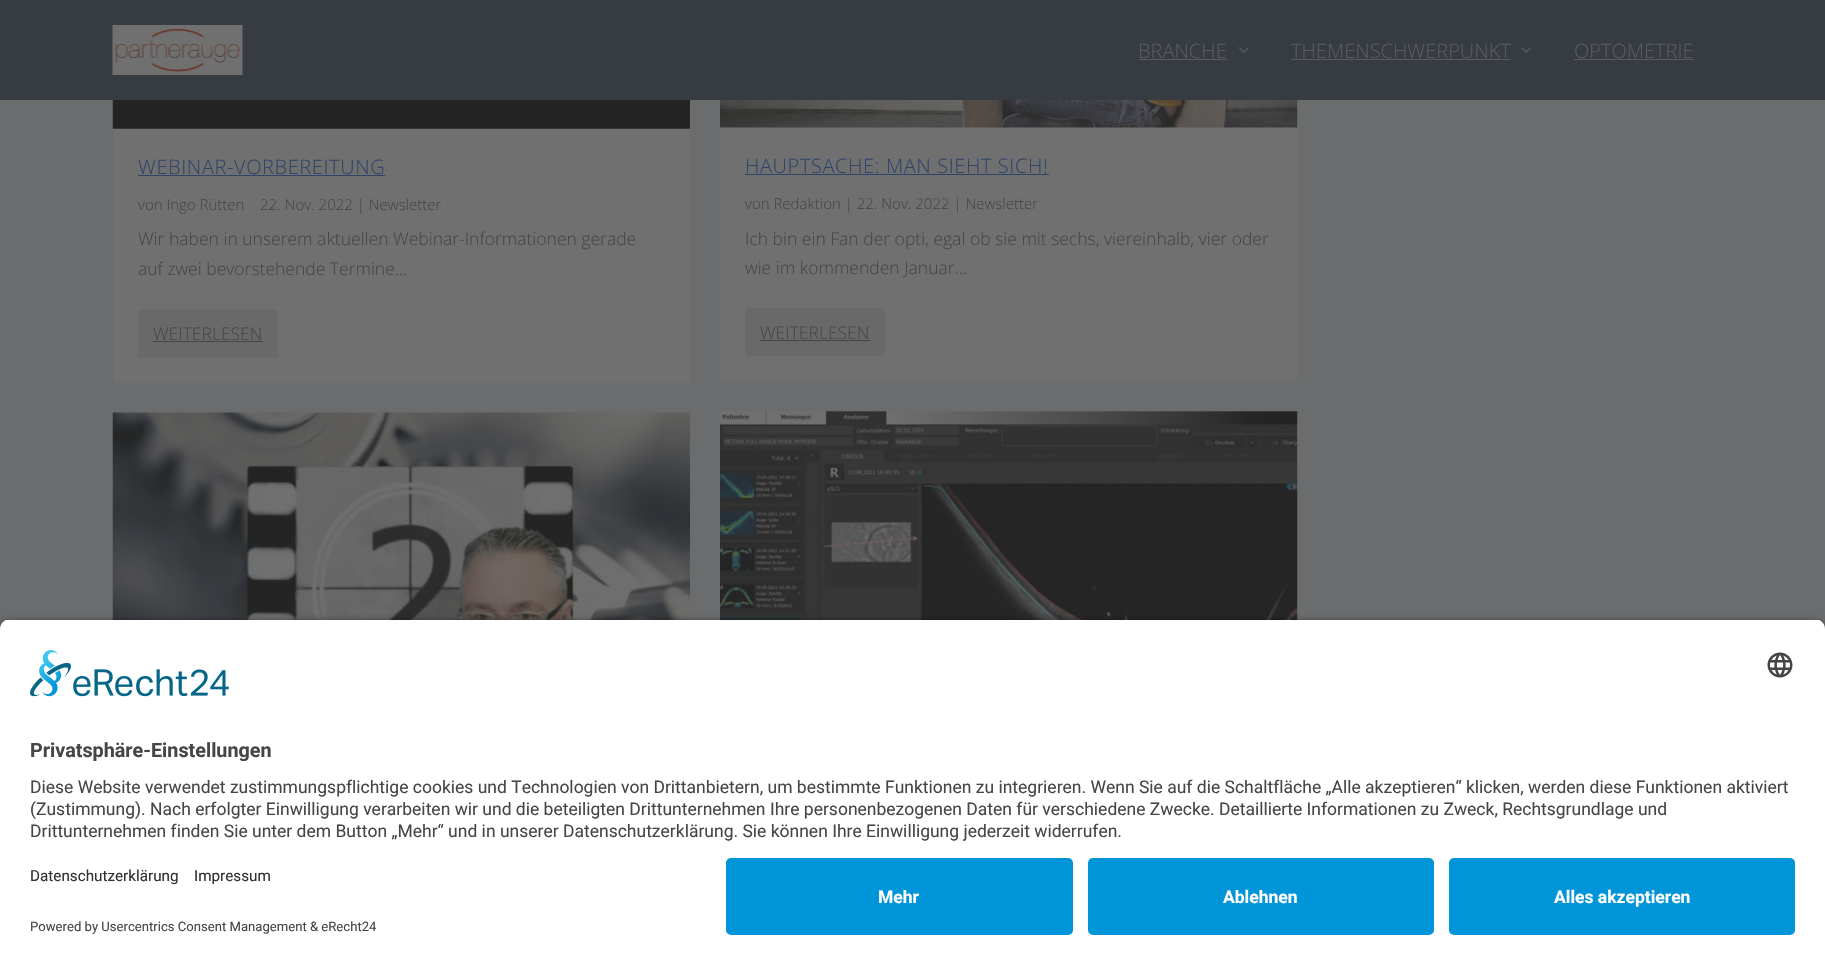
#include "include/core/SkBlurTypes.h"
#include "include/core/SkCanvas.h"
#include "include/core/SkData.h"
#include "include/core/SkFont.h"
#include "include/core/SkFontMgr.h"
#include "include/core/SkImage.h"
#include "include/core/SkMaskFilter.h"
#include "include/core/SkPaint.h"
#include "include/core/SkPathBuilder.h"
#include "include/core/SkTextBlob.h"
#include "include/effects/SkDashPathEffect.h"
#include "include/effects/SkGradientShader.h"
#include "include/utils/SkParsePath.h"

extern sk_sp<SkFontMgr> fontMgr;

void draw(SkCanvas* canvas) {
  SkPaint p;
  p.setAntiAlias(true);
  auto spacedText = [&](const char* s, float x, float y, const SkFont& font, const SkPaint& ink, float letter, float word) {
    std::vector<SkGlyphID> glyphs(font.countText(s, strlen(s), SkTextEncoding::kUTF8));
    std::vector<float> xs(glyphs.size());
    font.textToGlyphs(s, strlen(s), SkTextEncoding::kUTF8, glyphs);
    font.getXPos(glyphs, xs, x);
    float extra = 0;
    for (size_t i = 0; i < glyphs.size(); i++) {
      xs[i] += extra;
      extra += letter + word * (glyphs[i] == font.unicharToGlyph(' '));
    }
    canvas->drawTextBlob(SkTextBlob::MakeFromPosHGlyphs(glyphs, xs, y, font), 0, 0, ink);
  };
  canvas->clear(SkColorSetRGB(107, 108, 109));
  p.setColor(SkColorSetRGB(112, 112, 112));
  canvas->drawRoundRect(SkRect::MakeLTRB(113, -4, 690, 383), 4, 4, p);
  canvas->drawRoundRect(SkRect::MakeLTRB(720, -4, 1298, 381), 4, 4, p);
  p.setColor(SkColorSetRGB(54, 60, 65));
  canvas->drawRect(SkRect::MakeLTRB(0, 0, 1825, 100), p);
  canvas->drawImageRect(SkImages::DeferredFromEncodedData(SkData::MakeFromFileName("images/1.png")), SkRect::MakeLTRB(112, 25, 243, 75), SkSamplingOptions());
  p.setColor(SkColorSetRGB(89, 91, 93));
  canvas->drawRect(SkRect::MakeLTRB(1139, 59, 1228, 60), p);
  canvas->drawImageRect(SkImages::DeferredFromEncodedData(SkData::MakeFromFileName("images/2.png")), SkRect::MakeLTRB(1238, 47, 1249, 53), SkSamplingOptions());
  canvas->drawRect(SkRect::MakeLTRB(1291, 59, 1510, 60), p);
  canvas->drawImageRect(SkImages::DeferredFromEncodedData(SkData::MakeFromFileName("images/3.png")), SkRect::MakeLTRB(1521, 47, 1532, 53), SkSamplingOptions());
  canvas->drawRect(SkRect::MakeLTRB(1574, 59, 1694, 60), p);
  canvas->drawImageRect(SkImages::DeferredFromEncodedData(SkData::MakeFromFileName("images/4.png")), SkRect::MakeLTRB(112, 100, 690, 129), SkSamplingOptions());
  p.setColor(SkColorSetRGB(48, 68, 105));
  canvas->drawRect(SkRect::MakeLTRB(138, 175, 385, 176), p);
  p.setColor(SkColorSetRGB(105, 105, 105));
  canvas->drawRoundRect(SkRect::MakeLTRB(138, 309, 278, 358), 4, 4, p);
  p.setColor(SkColorSetRGB(70, 70, 70));
  canvas->drawRect(SkRect::MakeLTRB(153, 341, 263, 342), p);
  canvas->drawImageRect(SkImages::DeferredFromEncodedData(SkData::MakeFromFileName("images/5.png")), SkRect::MakeLTRB(112, 412, 690, 620), SkSamplingOptions());
  canvas->drawImageRect(SkImages::DeferredFromEncodedData(SkData::MakeFromFileName("images/6.png")), SkRect::MakeLTRB(720, 100, 1298, 128), SkSamplingOptions());
  p.setColor(SkColorSetRGB(48, 68, 105));
  canvas->drawRect(SkRect::MakeLTRB(745, 174, 1049, 175), p);
  p.setColor(SkColorSetRGB(105, 105, 105));
  canvas->drawRoundRect(SkRect::MakeLTRB(745, 308, 885, 356), 4, 4, p);
  p.setColor(SkColorSetRGB(70, 70, 70));
  canvas->drawRect(SkRect::MakeLTRB(760, 340, 870, 341), p);
  p.setColor(SkColorSetRGB(112, 112, 112));
  canvas->drawRoundRect(SkRect::MakeLTRB(720, 411, 1298, 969), 4, 4, p);
  canvas->drawImageRect(SkImages::DeferredFromEncodedData(SkData::MakeFromFileName("images/7.png")), SkRect::MakeLTRB(720, 411, 1298, 620), SkSamplingOptions());
  p.setColor(SkColorSetARGB(204, 0, 0, 0));
  p.setMaskFilter(SkMaskFilter::MakeBlur(kNormal_SkBlurStyle, 4.5f));
  canvas->drawRoundRect(SkRect::MakeLTRB(0, 623, 1825, 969), 10, 10, p);
  p.setMaskFilter(nullptr);
  canvas->save();
  canvas->clipPath(SkPathBuilder().moveTo(10, 619).lineTo(1815, 619).cubicTo(1820.5f, 619, 1825, 623.5f, 1825, 629).lineTo(1825, 848).lineTo(0, 848).lineTo(0, 629).cubicTo(0, 623.5f, 4.5f, 619, 10, 619).close().detach(), true);
  p.setColor(SK_ColorWHITE);
  canvas->drawRect(SkRect::MakeLTRB(0, 620, 1825, 848), p);
  canvas->restore();
  canvas->drawImageRect(SkImages::DeferredFromEncodedData(SkData::MakeFromFileName("images/8.png")), SkRect::MakeLTRB(30, 650, 229, 697), SkSamplingOptions());
  canvas->drawImageRect(SkImages::DeferredFromEncodedData(SkData::MakeFromFileName("images/9.png")), SkRect::MakeLTRB(1767, 652, 1793, 678), SkSamplingOptions());
  canvas->drawRect(SkRect::MakeLTRB(0, 848, 1825, 965), p);
  p.setColor(SkColorSetRGB(0, 148, 216));
  canvas->drawRoundRect(SkRect::MakeLTRB(726, 858, 1073, 935), 5, 5, p);
  canvas->drawRoundRect(SkRect::MakeLTRB(1088, 858, 1434, 935), 5, 5, p);
  canvas->drawRoundRect(SkRect::MakeLTRB(1449, 858, 1795, 935), 5, 5, p);
  SkFont font1(fontMgr->matchFamilyStyle("Open Sans", SkFontStyle(300, SkFontStyle::kNormal_Width, SkFontStyle::kUpright_Slant)), 20);
  font1.setSubpixel(true);
  p.setColor(SkColorSetRGB(89, 91, 93));
  canvas->drawString("BRANCHE", 1138, 58, font1, p);
  canvas->drawString("THEMENSCHWERPUNKT", 1291, 58, font1, p);
  canvas->drawString("OPTOMETRIE", 1574, 58, font1, p);
  p.setColor(SkColorSetRGB(48, 68, 105));
  spacedText("WEBINAR-VORBEREITUNG", 138, 174, font1, p, 0.6f, 0);
  SkFont font2(fontMgr->matchFamilyStyle("Open Sans", SkFontStyle(300, SkFontStyle::kNormal_Width, SkFontStyle::kUpright_Slant)), 15);
  font2.setSubpixel(true);
  p.setColor(SkColorSetRGB(70, 70, 70));
  canvas->drawString("von Ingo Rütten", 138, 210, font2, p);
  canvas->drawString("22. Nov. 2022 | Newsletter", 260, 210, font2, p);
  SkFont font3(fontMgr->matchFamilyStyle("Open Sans", SkFontStyle(300, SkFontStyle::kNormal_Width, SkFontStyle::kUpright_Slant)), 17.5f);
  font3.setSubpixel(true);
  canvas->drawString("Wir haben in unserem aktuellen Webinar-Informationen gerade", 138, 245, font3, p);
  canvas->drawString("auf zwei bevorstehende Termine...", 138, 275, font3, p);
  canvas->drawString("WEITERLESEN", 153, 340, font3, p);
  p.setColor(SkColorSetRGB(48, 68, 105));
  spacedText("HAUPTSACHE: MAN SIEHT SICH!", 745, 173, font1, p, 0.6f, 0);
  p.setColor(SkColorSetRGB(70, 70, 70));
  canvas->drawString("von Redaktion | 22. Nov. 2022 | Newsletter", 745, 209, font2, p);
  canvas->drawString("Ich bin ein Fan der opti, egal ob sie mit sechs, viereinhalb, vier oder", 745, 245, font3, p);
  canvas->drawString("wie im kommenden Januar...", 745, 274, font3, p);
  canvas->drawString("WEITERLESEN", 760, 339, font3, p);
  SkFont font4(fontMgr->matchFamilyStyle("Roboto", SkFontStyle::Bold()), 19.75f);
  font4.setSubpixel(true);
  canvas->drawString("Privatsphäre-Einstellungen", 30, 757, font4, p);
  SkFont font5(fontMgr->matchFamilyStyle("Roboto", SkFontStyle::Normal()), 17.5f);
  font5.setSubpixel(true);
  canvas->drawString("Diese Website verwendet zustimmungspflichtige cookies und Technologien von Drittanbietern, um bestimmte Funktionen zu integrieren. Wenn Sie auf die Schaltfläche „Alle akzeptieren“ klicken, werden diese Funktionen aktiviert", 30, 793, font5, p);
  canvas->drawString("(Zustimmung). Nach erfolgter Einwilligung verarbeiten wir und die beteiligten Drittunternehmen Ihre personenbezogenen Daten für verschiedene Zwecke. Detaillierte Informationen zu Zweck, Rechtsgrundlage und", 30, 815, font5, p);
  canvas->drawString("Drittunternehmen finden Sie unter dem Button „Mehr“ und in unserer Datenschutzerklärung. Sie können Ihre Einwilligung jederzeit widerrufen.", 30, 837, font5, p);
  SkFont font6(fontMgr->matchFamilyStyle("Roboto", SkFontStyle::Normal()), 15.25f);
  font6.setSubpixel(true);
  p.setColor(SkColorSetRGB(48, 48, 48));
  canvas->drawString("Datenschutzerklärung", 30, 881, font6, p);
  canvas->drawString("Impressum", 194, 881, font6, p);
  SkFont font7(fontMgr->matchFamilyStyle("Roboto", SkFontStyle::Normal()), 13.1f);
  font7.setSubpixel(true);
  p.setColor(SkColorSetRGB(70, 70, 70));
  canvas->drawString("Powered by Usercentrics Consent Management & eRecht24", 30, 931, font7, p);
  SkFont font8(fontMgr->matchFamilyStyle("Roboto", SkFontStyle::Bold()), 17.5f);
  font8.setSubpixel(true);
  p.setColor(SK_ColorWHITE);
  canvas->drawString("Mehr", 878, 903, font8, p);
  canvas->drawString("Ablehnen", 1223, 903, font8, p);
  canvas->drawString("Alles akzeptieren", 1554, 903, font8, p);
}
